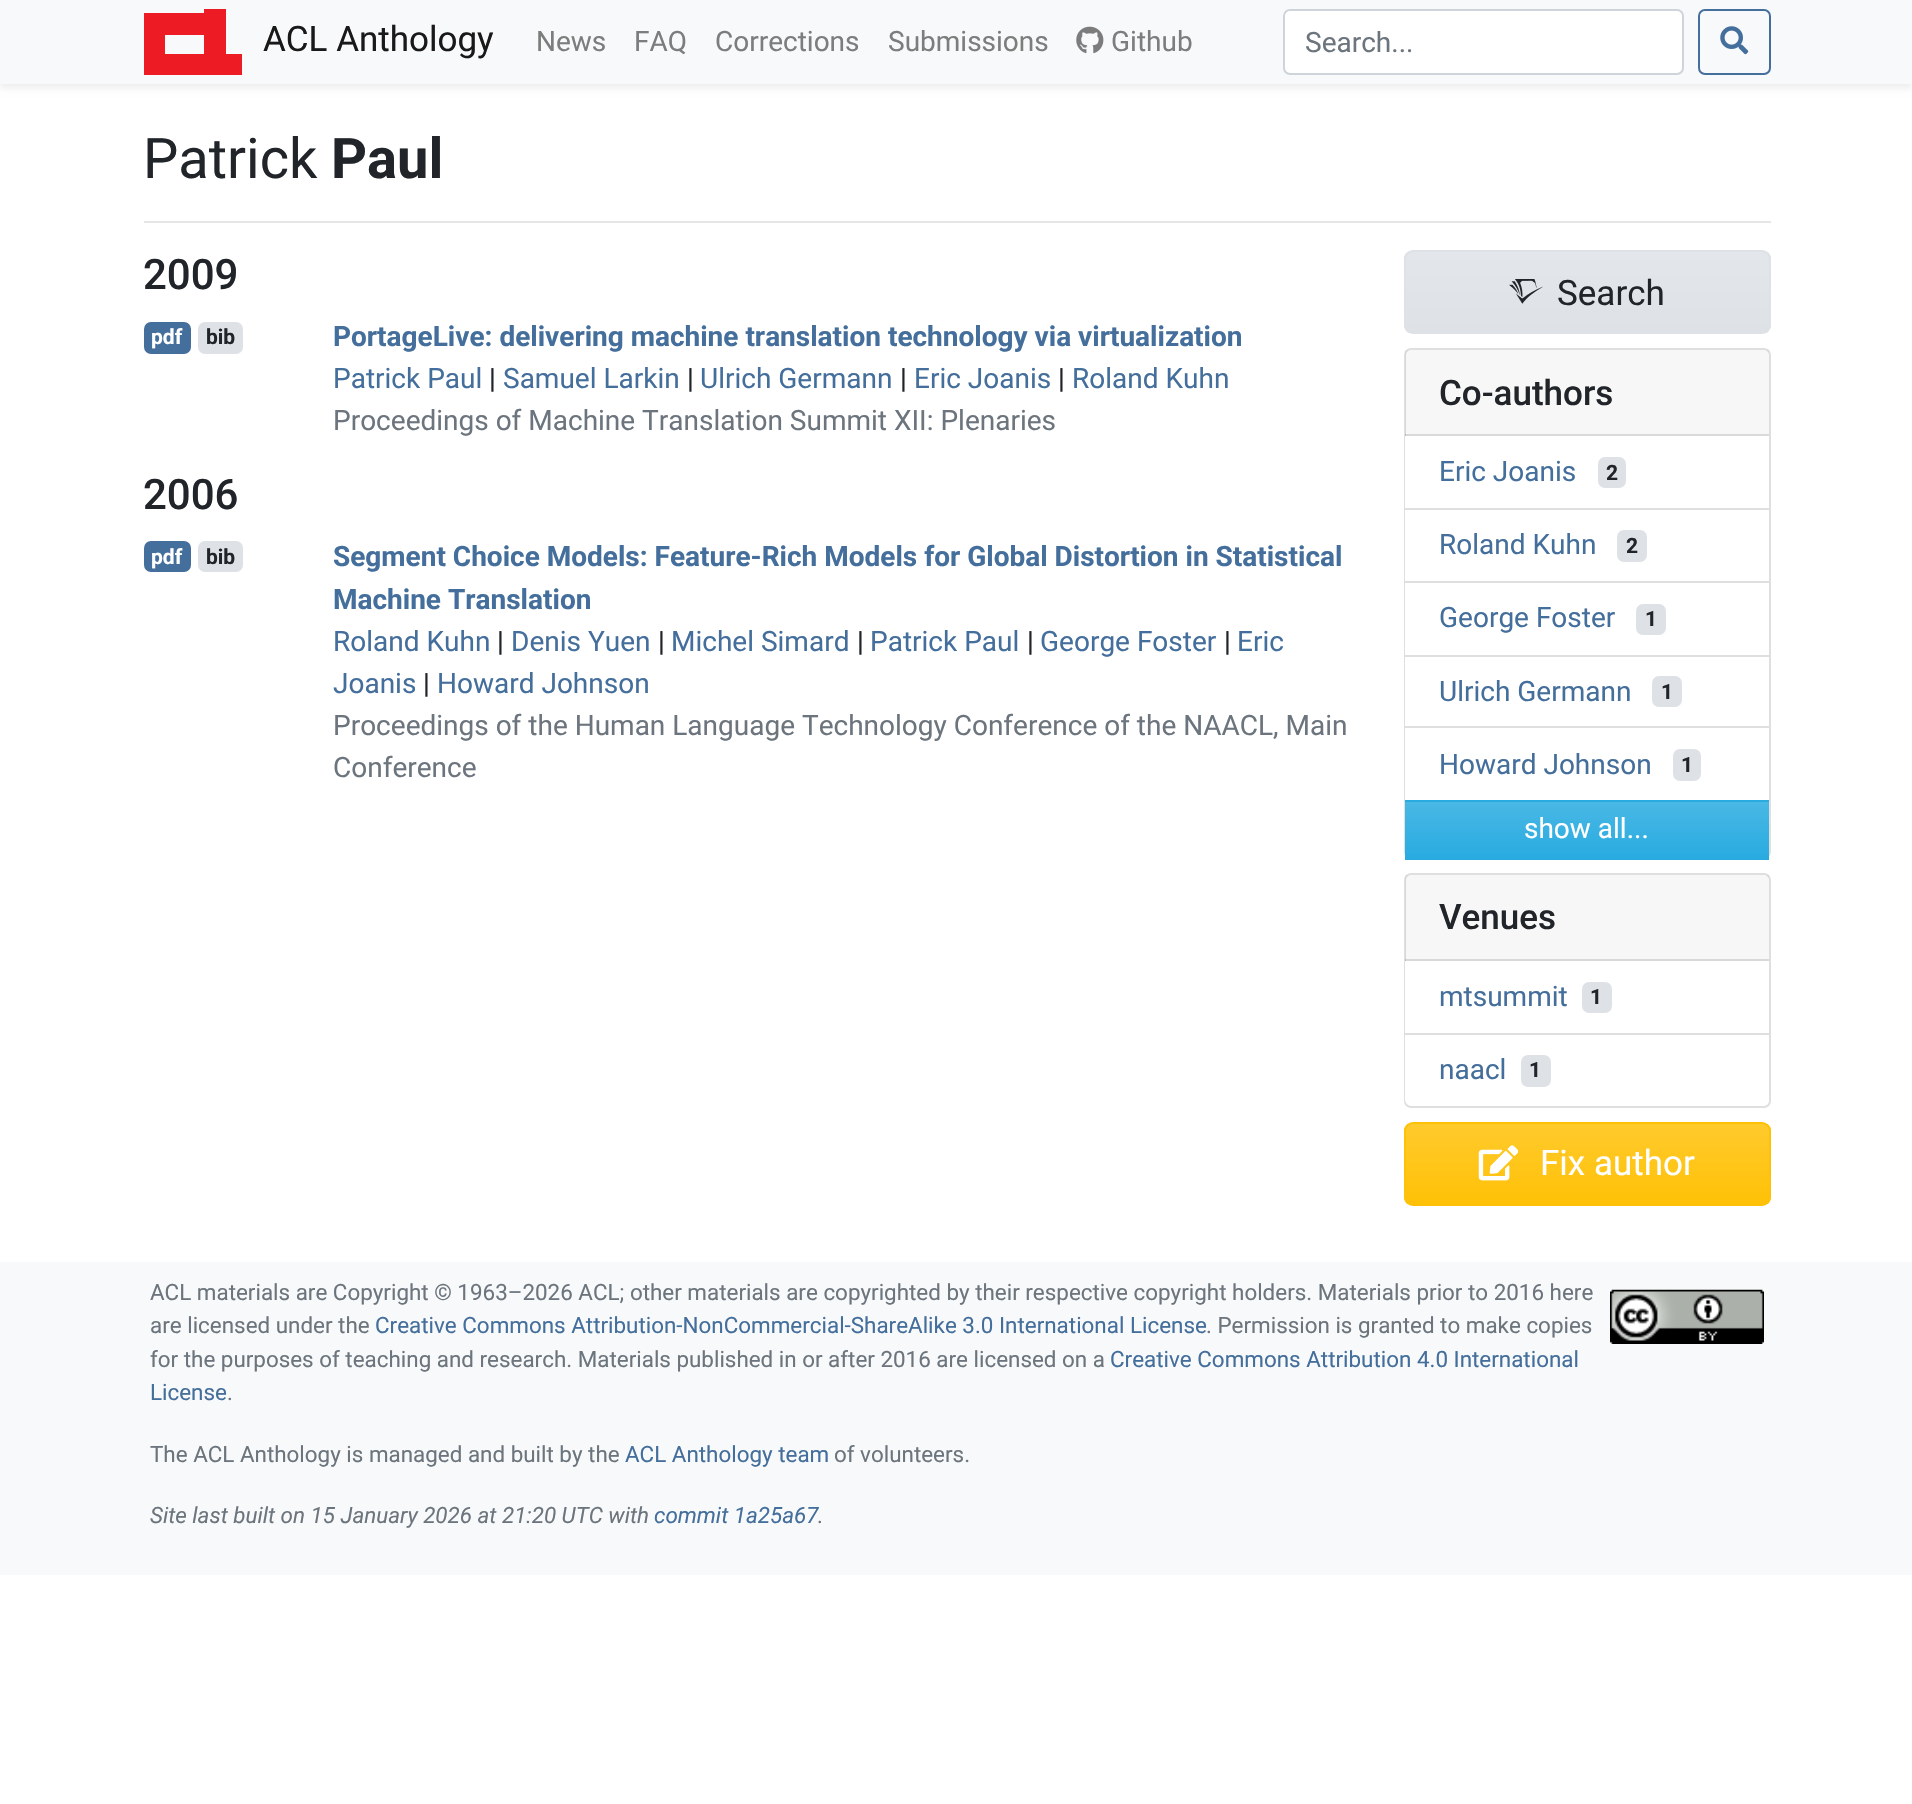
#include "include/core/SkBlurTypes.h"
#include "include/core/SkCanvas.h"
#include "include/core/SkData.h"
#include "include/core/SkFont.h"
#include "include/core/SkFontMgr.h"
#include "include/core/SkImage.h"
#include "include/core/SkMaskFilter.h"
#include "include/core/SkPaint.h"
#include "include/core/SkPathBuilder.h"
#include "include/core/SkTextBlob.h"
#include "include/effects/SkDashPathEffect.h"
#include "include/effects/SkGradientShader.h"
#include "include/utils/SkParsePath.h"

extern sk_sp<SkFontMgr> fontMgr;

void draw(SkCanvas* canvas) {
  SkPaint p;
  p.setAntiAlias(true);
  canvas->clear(SK_ColorWHITE);
  p.setColor(SkColorSetARGB(18, 0, 0, 0));
  p.setMaskFilter(SkMaskFilter::MakeBlur(kNormal_SkBlurStyle, 3.5f));
  canvas->drawRect(SkRect::MakeLTRB(0, 4, 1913, 88), p);
  p.setMaskFilter(nullptr);
  p.setColor(SkColorSetRGB(248, 249, 250));
  canvas->drawRect(SkRect::MakeLTRB(0, 0, 1912, 84), p);
  p.setColor(SkColorSetRGB(237, 28, 36));
  canvas->drawPath(SkPathBuilder(SkPathFillType::kEvenOdd).moveTo(204, 9).lineTo(204, 13).lineTo(144, 13).lineTo(144, 75).lineTo(242, 75).lineTo(242, 54).lineTo(226, 54).lineTo(226, 9).close().moveTo(165, 35).lineTo(204, 35).lineTo(204, 54).lineTo(165, 54).close().detach(), p);
  canvas->drawImageRect(SkImages::DeferredFromEncodedData(SkData::MakeFromFileName("images/1.png")), SkRect::MakeLTRB(1076, 26, 1104, 54), SkSamplingOptions());
  p.setColor(SK_ColorWHITE);
  canvas->drawRoundRect(SkRect::MakeLTRB(1284, 10, 1683, 74), 6, 6, p);
  p.setStyle(SkPaint::kStroke_Style);
  p.setStrokeWidth(2);
  p.setColor(SkColorSetRGB(206, 212, 218));
  canvas->drawRoundRect(SkRect::MakeLTRB(1284, 10, 1683, 74), 6, 6, p);
  p.setColor(SkColorSetRGB(68, 110, 155));
  canvas->drawRoundRect(SkRect::MakeLTRB(1699, 10, 1770, 74), 6, 6, p);
  canvas->drawImageRect(SkImages::DeferredFromEncodedData(SkData::MakeFromFileName("images/2.png")), SkRect::MakeLTRB(1720, 26, 1749, 55), SkSamplingOptions());
  p.setStyle(SkPaint::kFill_Style);
  p.setColor(SkColorSetRGB(230, 230, 230));
  canvas->drawRect(SkRect::MakeLTRB(144, 221, 1771, 223), p);
  p.setColor(SkColorSetRGB(68, 110, 155));
  canvas->drawRoundRect(SkRect::MakeLTRB(144, 322, 191, 354), 7, 7, p);
  p.setColor(SkColorSetRGB(222, 226, 230));
  canvas->drawRoundRect(SkRect::MakeLTRB(198, 322, 243, 354), 7, 7, p);
  p.setColor(SkColorSetRGB(68, 110, 155));
  canvas->drawRoundRect(SkRect::MakeLTRB(144, 541, 191, 572), 7, 7, p);
  p.setColor(SkColorSetRGB(222, 226, 230));
  canvas->drawRoundRect(SkRect::MakeLTRB(198, 541, 243, 572), 7, 7, p);
  canvas->save();
  canvas->clipPath(SkPathBuilder().moveTo(1413, 250).lineTo(1762, 250).cubicTo(1767, 250, 1771, 254, 1771, 259).lineTo(1771, 325).cubicTo(1771, 330, 1767, 334, 1762, 334).lineTo(1413, 334).cubicTo(1408, 334, 1404, 330, 1404, 325).lineTo(1404, 259).cubicTo(1404, 254, 1408, 250, 1413, 250).close().detach(), true);
  {
    const SkColor colors[] = {SkColorSetRGB(227, 230, 234), SkColorSetRGB(222, 226, 230)};
    const float stops[] = {0, 1};
    const SkPoint ends[] = {{1587, 252}, {1587, 333}};
    p.setShader(SkGradientShader::MakeLinear(ends, colors, stops, 2, SkTileMode::kClamp));
    p.setAlpha(255);
  }
  canvas->drawRect(SkRect::MakeLTRB(1404, 252, 1771, 333), p);
  canvas->restore();
  p.setStyle(SkPaint::kStroke_Style);
  p.setShader(nullptr);
  p.setColor(SkColorSetRGB(222, 226, 230));
  canvas->drawRoundRect(SkRect::MakeLTRB(1405, 251, 1770, 333), 8, 8, p);
  canvas->drawImageRect(SkImages::DeferredFromEncodedData(SkData::MakeFromFileName("images/3.png")), SkRect::MakeLTRB(1509, 279, 1543, 304), SkSamplingOptions());
  p.setColor(SkColorSetRGB(223, 223, 223));
  canvas->drawRoundRect(SkRect::MakeLTRB(1405, 349, 1770, 858), 6, 6, p);
  p.setStyle(SkPaint::kFill_Style);
  p.setColor(SkColorSetARGB(8, 0, 0, 0));
  canvas->drawRect(SkRect::MakeLTRB(1405, 350, 1769, 436), p);
  p.setColor(SkColorSetARGB(31, 0, 0, 0));
  canvas->drawRect(SkRect::MakeLTRB(1405, 434, 1769, 436), p);
  p.setColor(SK_ColorWHITE);
  canvas->drawRect(SkRect::MakeLTRB(1405, 436, 1406, 508), p);
  p.setColor(SkColorSetRGB(222, 226, 230));
  canvas->drawRoundRect(SkRect::MakeLTRB(1598, 457, 1626, 488), 7, 7, p);
  p.setColor(SK_ColorWHITE);
  canvas->drawRect(SkRect::MakeLTRB(1405, 510, 1406, 581), p);
  p.setColor(SkColorSetRGB(223, 223, 223));
  canvas->drawRect(SkRect::MakeLTRB(1405, 508, 1769, 510), p);
  p.setColor(SkColorSetRGB(222, 226, 230));
  canvas->drawRoundRect(SkRect::MakeLTRB(1617, 530, 1647, 562), 7, 7, p);
  p.setColor(SK_ColorWHITE);
  canvas->drawRect(SkRect::MakeLTRB(1405, 583, 1406, 655), p);
  p.setColor(SkColorSetRGB(223, 223, 223));
  canvas->drawRect(SkRect::MakeLTRB(1405, 581, 1769, 583), p);
  p.setColor(SkColorSetRGB(222, 226, 230));
  canvas->drawRoundRect(SkRect::MakeLTRB(1636, 604, 1666, 635), 7, 7, p);
  p.setColor(SK_ColorWHITE);
  canvas->drawRect(SkRect::MakeLTRB(1405, 657, 1406, 726), p);
  p.setColor(SkColorSetRGB(223, 223, 223));
  canvas->drawRect(SkRect::MakeLTRB(1405, 655, 1769, 657), p);
  p.setColor(SkColorSetRGB(222, 226, 230));
  canvas->drawRoundRect(SkRect::MakeLTRB(1652, 676, 1682, 707), 7, 7, p);
  p.setColor(SK_ColorWHITE);
  canvas->drawRect(SkRect::MakeLTRB(1405, 728, 1406, 800), p);
  p.setColor(SkColorSetRGB(223, 223, 223));
  canvas->drawRect(SkRect::MakeLTRB(1405, 726, 1769, 728), p);
  p.setColor(SkColorSetRGB(222, 226, 230));
  canvas->drawRoundRect(SkRect::MakeLTRB(1673, 749, 1701, 781), 7, 7, p);
  p.setColor(SkColorSetRGB(41, 171, 224));
  canvas->drawRect(SkRect::MakeLTRB(1405, 800, 1769, 802), p);
  {
    const SkColor colors[] = {SkColorSetRGB(73, 184, 229), SkColorSetRGB(41, 171, 224)};
    const float stops[] = {0, 1};
    const SkPoint ends[] = {{1587, 802}, {1587, 858}};
    p.setShader(SkGradientShader::MakeLinear(ends, colors, stops, 2, SkTileMode::kClamp));
    p.setAlpha(255);
  }
  canvas->drawRect(SkRect::MakeLTRB(1405, 802, 1769, 858), p);
  p.setShader(nullptr);
  p.setColor(SkColorSetRGB(41, 171, 224));
  canvas->drawRect(SkRect::MakeLTRB(1405, 858, 1769, 860), p);
  p.setStyle(SkPaint::kStroke_Style);
  p.setColor(SkColorSetRGB(223, 223, 223));
  canvas->drawRoundRect(SkRect::MakeLTRB(1405, 874, 1770, 1107), 6, 6, p);
  p.setStyle(SkPaint::kFill_Style);
  p.setColor(SkColorSetARGB(8, 0, 0, 0));
  canvas->drawRect(SkRect::MakeLTRB(1405, 875, 1769, 961), p);
  p.setColor(SkColorSetARGB(31, 0, 0, 0));
  canvas->drawRect(SkRect::MakeLTRB(1405, 959, 1769, 961), p);
  p.setColor(SK_ColorWHITE);
  canvas->drawRect(SkRect::MakeLTRB(1405, 961, 1406, 1033), p);
  p.setColor(SkColorSetRGB(222, 226, 230));
  canvas->drawRoundRect(SkRect::MakeLTRB(1582, 982, 1612, 1013), 7, 7, p);
  p.setColor(SK_ColorWHITE);
  canvas->drawPath(SkPathBuilder().moveTo(1405, 1033).lineTo(1769, 1033).lineTo(1769, 1099).cubicTo(1769, 1103, 1766, 1106, 1762, 1106).lineTo(1412, 1106).cubicTo(1408, 1106, 1405, 1103, 1405, 1099).close().detach(), p);
  p.setColor(SkColorSetRGB(223, 223, 223));
  canvas->drawRect(SkRect::MakeLTRB(1405, 1033, 1769, 1035), p);
  p.setColor(SkColorSetRGB(222, 226, 230));
  canvas->drawRoundRect(SkRect::MakeLTRB(1521, 1055, 1551, 1087), 7, 7, p);
  canvas->save();
  canvas->clipPath(SkPathBuilder().moveTo(1413, 1122).lineTo(1762, 1122).cubicTo(1767, 1122, 1771, 1126, 1771, 1131).lineTo(1771, 1197).cubicTo(1771, 1202, 1767, 1206, 1762, 1206).lineTo(1413, 1206).cubicTo(1408, 1206, 1404, 1202, 1404, 1197).lineTo(1404, 1131).cubicTo(1404, 1126, 1408, 1122, 1413, 1122).close().detach(), true);
  {
    const SkColor colors[] = {SkColorSetRGB(255, 202, 44), SkColorSetRGB(255, 193, 7)};
    const float stops[] = {0, 1};
    const SkPoint ends[] = {{1587, 1124}, {1587, 1204}};
    p.setShader(SkGradientShader::MakeLinear(ends, colors, stops, 2, SkTileMode::kClamp));
    p.setAlpha(255);
  }
  canvas->drawRect(SkRect::MakeLTRB(1404, 1124, 1771, 1204), p);
  canvas->restore();
  p.setStyle(SkPaint::kStroke_Style);
  p.setShader(nullptr);
  p.setColor(SkColorSetRGB(255, 193, 7));
  canvas->drawRoundRect(SkRect::MakeLTRB(1405, 1123, 1770, 1205), 8, 8, p);
  canvas->drawImageRect(SkImages::DeferredFromEncodedData(SkData::MakeFromFileName("images/4.png")), SkRect::MakeLTRB(1478, 1145, 1519, 1181), SkSamplingOptions());
  p.setStyle(SkPaint::kFill_Style);
  p.setColor(SkColorSetRGB(248, 249, 250));
  canvas->drawRect(SkRect::MakeLTRB(0, 1262, 1912, 1575), p);
  canvas->drawImageRect(SkImages::DeferredFromEncodedData(SkData::MakeFromFileName("images/5.png")), SkRect::MakeLTRB(1610, 1289, 1764, 1344), SkSamplingOptions());
  SkFont font1(fontMgr->matchFamilyStyle("Roboto", SkFontStyle::Normal()), 35);
  font1.setSubpixel(true);
  p.setColor(SkColorSetRGB(25, 25, 25));
  canvas->drawString("ACL Anthology", 263, 51, font1, p);
  SkFont font2(fontMgr->matchFamilyStyle("Roboto", SkFontStyle::Normal()), 28);
  font2.setSubpixel(true);
  p.setColor(SkColorSetRGB(124, 125, 125));
  canvas->drawString("News", 536, 51, font2, p);
  canvas->drawString("FAQ", 634, 51, font2, p);
  canvas->drawString("Corrections", 715, 51, font2, p);
  canvas->drawString("Submissions", 888, 51, font2, p);
  canvas->drawString("Github", 1111, 51, font2, p);
  p.setColor(SkColorSetRGB(108, 117, 125));
  canvas->drawString("Search...", 1305, 52, font2, p);
  SkFont font3(fontMgr->matchFamilyStyle("Roboto", SkFontStyle::Normal()), 56);
  font3.setSubpixel(true);
  p.setColor(SkColorSetRGB(33, 37, 41));
  canvas->drawString("Patrick", 143, 178, font3, p);
  SkFont font4(fontMgr->matchFamilyStyle("Roboto", SkFontStyle::Bold()), 56);
  font4.setSubpixel(true);
  canvas->drawString("Paul", 331, 178, font4, p);
  SkFont font5(fontMgr->matchFamilyStyle("Roboto", SkFontStyle(500, SkFontStyle::kNormal_Width, SkFontStyle::kUpright_Slant)), 42);
  font5.setSubpixel(true);
  canvas->drawString("2009", 143, 289, font5, p);
  SkFont font6(fontMgr->matchFamilyStyle("Roboto", SkFontStyle::Bold()), 21);
  font6.setSubpixel(true);
  p.setColor(SK_ColorWHITE);
  canvas->drawString("pdf", 151, 344, font6, p);
  p.setColor(SkColorSetRGB(33, 37, 41));
  canvas->drawString("bib", 206, 344, font6, p);
  SkFont font7(fontMgr->matchFamilyStyle("Roboto", SkFontStyle::Bold()), 28);
  font7.setSubpixel(true);
  p.setColor(SkColorSetRGB(68, 110, 155));
  canvas->drawString("PortageLive: delivering machine translation technology via virtualization", 333, 346, font7, p);
  canvas->drawString("Patrick Paul", 333, 388, font2, p);
  p.setColor(SkColorSetRGB(33, 37, 41));
  canvas->drawString("|", 489, 388, font2, p);
  p.setColor(SkColorSetRGB(68, 110, 155));
  canvas->drawString("Samuel Larkin", 503, 388, font2, p);
  p.setColor(SkColorSetRGB(33, 37, 41));
  canvas->drawString("|", 687, 388, font2, p);
  p.setColor(SkColorSetRGB(68, 110, 155));
  canvas->drawString("Ulrich Germann", 700, 388, font2, p);
  p.setColor(SkColorSetRGB(33, 37, 41));
  canvas->drawString("|", 900, 388, font2, p);
  p.setColor(SkColorSetRGB(68, 110, 155));
  canvas->drawString("Eric Joanis", 914, 388, font2, p);
  p.setColor(SkColorSetRGB(33, 37, 41));
  canvas->drawString("|", 1058, 388, font2, p);
  p.setColor(SkColorSetRGB(68, 110, 155));
  canvas->drawString("Roland Kuhn", 1072, 388, font2, p);
  p.setColor(SkColorSetRGB(108, 117, 125));
  canvas->drawString("Proceedings of Machine Translation Summit XII: Plenaries", 333, 430, font2, p);
  p.setColor(SkColorSetRGB(33, 37, 41));
  canvas->drawString("2006", 143, 509, font5, p);
  p.setColor(SK_ColorWHITE);
  canvas->drawString("pdf", 151, 564, font6, p);
  p.setColor(SkColorSetRGB(33, 37, 41));
  canvas->drawString("bib", 206, 564, font6, p);
  p.setColor(SkColorSetRGB(68, 110, 155));
  canvas->drawString("Segment Choice Models: Feature-Rich Models for Global Distortion in Statistical", 333, 566, font7, p);
  canvas->drawString("Machine Translation", 333, 609, font7, p);
  canvas->drawString("Roland Kuhn", 333, 651, font2, p);
  p.setColor(SkColorSetRGB(33, 37, 41));
  canvas->drawString("|", 497, 651, font2, p);
  p.setColor(SkColorSetRGB(68, 110, 155));
  canvas->drawString("Denis Yuen", 511, 651, font2, p);
  p.setColor(SkColorSetRGB(33, 37, 41));
  canvas->drawString("|", 658, 651, font2, p);
  p.setColor(SkColorSetRGB(68, 110, 155));
  canvas->drawString("Michel Simard", 671, 651, font2, p);
  p.setColor(SkColorSetRGB(33, 37, 41));
  canvas->drawString("|", 857, 651, font2, p);
  p.setColor(SkColorSetRGB(68, 110, 155));
  canvas->drawString("Patrick Paul", 870, 651, font2, p);
  p.setColor(SkColorSetRGB(33, 37, 41));
  canvas->drawString("|", 1027, 651, font2, p);
  p.setColor(SkColorSetRGB(68, 110, 155));
  canvas->drawString("George Foster", 1040, 651, font2, p);
  p.setColor(SkColorSetRGB(33, 37, 41));
  canvas->drawString("|", 1224, 651, font2, p);
  p.setColor(SkColorSetRGB(68, 110, 155));
  canvas->drawString("Eric", 1237, 651, font2, p);
  canvas->drawString("Joanis", 333, 693, font2, p);
  p.setColor(SkColorSetRGB(33, 37, 41));
  canvas->drawString("|", 423, 693, font2, p);
  p.setColor(SkColorSetRGB(68, 110, 155));
  canvas->drawString("Howard Johnson", 437, 693, font2, p);
  p.setColor(SkColorSetRGB(108, 117, 125));
  canvas->drawString("Proceedings of the Human Language Technology Conference of the NAACL, Main", 333, 735, font2, p);
  canvas->drawString("Conference", 333, 777, font2, p);
  p.setColor(SkColorSetRGB(33, 37, 41));
  canvas->drawString("Search", 1557, 305, font1, p);
  SkFont font8(fontMgr->matchFamilyStyle("Roboto", SkFontStyle(500, SkFontStyle::kNormal_Width, SkFontStyle::kUpright_Slant)), 35);
  font8.setSubpixel(true);
  canvas->drawString("Co-authors", 1439, 405, font8, p);
  p.setColor(SkColorSetRGB(68, 110, 155));
  canvas->drawString("Eric Joanis", 1439, 481, font2, p);
  p.setColor(SkColorSetRGB(33, 37, 41));
  canvas->drawString("2", 1606, 480, font6, p);
  p.setColor(SkColorSetRGB(68, 110, 155));
  canvas->drawString("Roland Kuhn", 1439, 554, font2, p);
  p.setColor(SkColorSetRGB(33, 37, 41));
  canvas->drawString("2", 1626, 553, font6, p);
  p.setColor(SkColorSetRGB(68, 110, 155));
  canvas->drawString("George Foster", 1439, 627, font2, p);
  p.setColor(SkColorSetRGB(33, 37, 41));
  canvas->drawString("1", 1645, 626, font6, p);
  p.setColor(SkColorSetRGB(68, 110, 155));
  canvas->drawString("Ulrich Germann", 1439, 701, font2, p);
  p.setColor(SkColorSetRGB(33, 37, 41));
  canvas->drawString("1", 1661, 699, font6, p);
  p.setColor(SkColorSetRGB(68, 110, 155));
  canvas->drawString("Howard Johnson", 1439, 774, font2, p);
  p.setColor(SkColorSetRGB(33, 37, 41));
  canvas->drawString("1", 1681, 772, font6, p);
  p.setColor(SK_ColorWHITE);
  canvas->drawString("show all...", 1524, 838, font2, p);
  p.setColor(SkColorSetRGB(33, 37, 41));
  canvas->drawString("Venues", 1439, 929, font8, p);
  p.setColor(SkColorSetRGB(68, 110, 155));
  canvas->drawString("mtsummit", 1439, 1006, font2, p);
  p.setColor(SkColorSetRGB(33, 37, 41));
  canvas->drawString("1", 1590, 1004, font6, p);
  p.setColor(SkColorSetRGB(68, 110, 155));
  canvas->drawString("naacl", 1439, 1079, font2, p);
  p.setColor(SkColorSetRGB(33, 37, 41));
  canvas->drawString("1", 1529, 1077, font6, p);
  p.setColor(SK_ColorWHITE);
  canvas->drawString("Fix author", 1540, 1175, font1, p);
  SkFont font9(fontMgr->matchFamilyStyle("Roboto", SkFontStyle::Normal()), 22.4f);
  font9.setSubpixel(true);
  p.setColor(SkColorSetRGB(108, 117, 125));
  canvas->drawString("ACL materials are Copyright © 1963–2026 ACL; other materials are copyrighted by their respective copyright holders. Materials prior to 2016 here", 150, 1300, font9, p);
  canvas->drawString("are licensed under the", 150, 1333, font9, p);
  p.setColor(SkColorSetRGB(68, 110, 155));
  canvas->drawString("Creative Commons Attribution-NonCommercial-ShareAlike 3.0 International License", 375, 1333, font9, p);
  p.setColor(SkColorSetRGB(108, 117, 125));
  canvas->drawString(". Permission is granted to make copies", 1206, 1333, font9, p);
  canvas->drawString("for the purposes of teaching and research. Materials published in or after 2016 are licensed on a", 150, 1367, font9, p);
  p.setColor(SkColorSetRGB(68, 110, 155));
  canvas->drawString("Creative Commons Attribution 4.0 International", 1110, 1367, font9, p);
  canvas->drawString("License", 150, 1400, font9, p);
  p.setColor(SkColorSetRGB(108, 117, 125));
  canvas->drawString(".", 227, 1400, font9, p);
  canvas->drawString("The ACL Anthology is managed and built by the", 150, 1462, font9, p);
  p.setColor(SkColorSetRGB(68, 110, 155));
  canvas->drawString("ACL Anthology team", 625, 1462, font9, p);
  p.setColor(SkColorSetRGB(108, 117, 125));
  canvas->drawString("of volunteers.", 834, 1462, font9, p);
  SkFont font10(fontMgr->matchFamilyStyle("Roboto", SkFontStyle::Italic()), 22.4f);
  font10.setSubpixel(true);
  canvas->drawString("Site last built on 15 January 2026 at 21:20 UTC with", 150, 1523, font10, p);
  p.setColor(SkColorSetRGB(68, 110, 155));
  canvas->drawString("commit 1a25a67", 654, 1523, font10, p);
  p.setColor(SkColorSetRGB(108, 117, 125));
  canvas->drawString(".", 818, 1523, font10, p);
}
